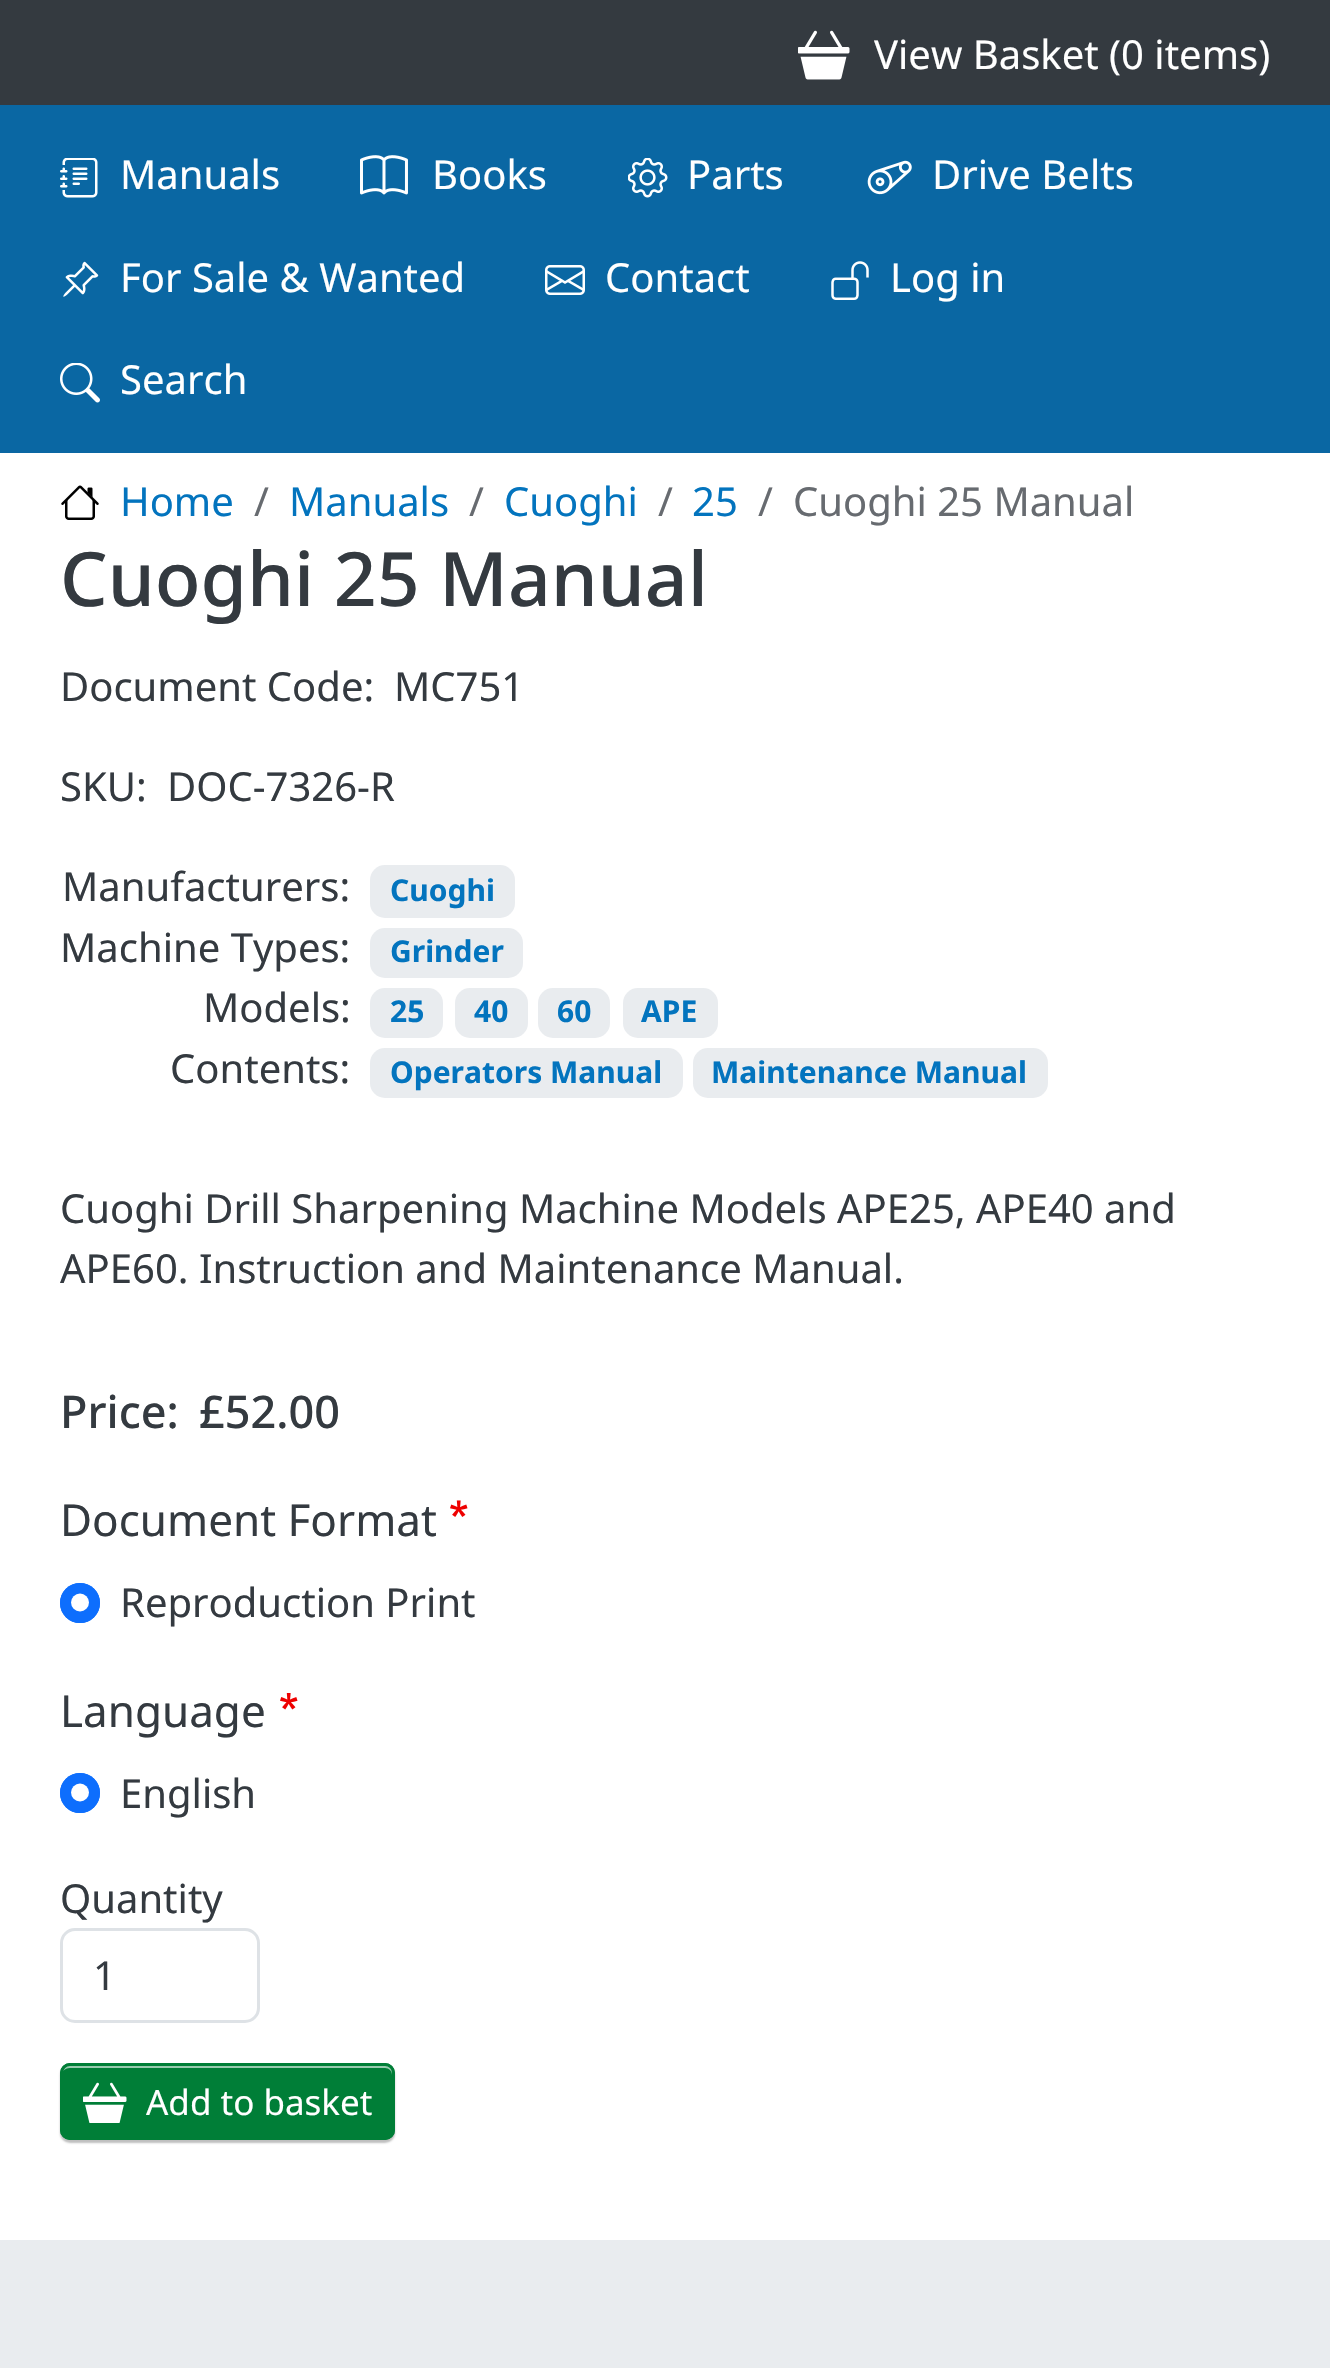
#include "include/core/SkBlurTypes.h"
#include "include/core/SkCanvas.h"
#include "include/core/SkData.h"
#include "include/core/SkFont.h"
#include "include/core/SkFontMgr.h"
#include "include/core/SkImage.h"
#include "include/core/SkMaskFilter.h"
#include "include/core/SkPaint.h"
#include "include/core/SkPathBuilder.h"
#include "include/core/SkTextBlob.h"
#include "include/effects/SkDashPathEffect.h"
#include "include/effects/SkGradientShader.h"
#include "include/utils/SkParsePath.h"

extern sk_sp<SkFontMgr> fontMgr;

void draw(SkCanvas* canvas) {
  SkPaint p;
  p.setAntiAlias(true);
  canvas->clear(SK_ColorWHITE);
  p.setColor(SkColorSetRGB(52, 58, 64));
  canvas->drawRect(SkRect::MakeLTRB(0, 0, 1330, 105), p);
  canvas->drawImageRect(SkImages::DeferredFromEncodedData(SkData::MakeFromFileName("images/1.png")), SkRect::MakeLTRB(798, 30, 850, 80), SkSamplingOptions());
  p.setColor(SkColorSetRGB(10, 103, 163));
  canvas->drawRect(SkRect::MakeLTRB(0, 105, 1330, 453), p);
  canvas->drawImageRect(SkImages::DeferredFromEncodedData(SkData::MakeFromFileName("images/2.png")), SkRect::MakeLTRB(60, 158, 98, 198), SkSamplingOptions());
  canvas->drawImageRect(SkImages::DeferredFromEncodedData(SkData::MakeFromFileName("images/3.png")), SkRect::MakeLTRB(360, 155, 408, 195), SkSamplingOptions());
  canvas->drawImageRect(SkImages::DeferredFromEncodedData(SkData::MakeFromFileName("images/4.png")), SkRect::MakeLTRB(628, 158, 668, 198), SkSamplingOptions());
  canvas->drawImageRect(SkImages::DeferredFromEncodedData(SkData::MakeFromFileName("images/5.png")), SkRect::MakeLTRB(867, 160, 912, 195), SkSamplingOptions());
  canvas->drawImageRect(SkImages::DeferredFromEncodedData(SkData::MakeFromFileName("images/6.png")), SkRect::MakeLTRB(63, 261, 99, 297), SkSamplingOptions());
  canvas->drawImageRect(SkImages::DeferredFromEncodedData(SkData::MakeFromFileName("images/7.png")), SkRect::MakeLTRB(545, 265, 585, 295), SkSamplingOptions());
  canvas->drawImageRect(SkImages::DeferredFromEncodedData(SkData::MakeFromFileName("images/8.png")), SkRect::MakeLTRB(831, 261, 869, 300), SkSamplingOptions());
  canvas->drawImageRect(SkImages::DeferredFromEncodedData(SkData::MakeFromFileName("images/9.png")), SkRect::MakeLTRB(60, 363, 100, 403), SkSamplingOptions());
  canvas->drawImageRect(SkImages::DeferredFromEncodedData(SkData::MakeFromFileName("images/10.png")), SkRect::MakeLTRB(61, 485, 99, 520), SkSamplingOptions());
  p.setColor(SkColorSetRGB(233, 236, 239));
  canvas->drawRoundRect(SkRect::MakeLTRB(370, 865, 515, 918), 15, 15, p);
  canvas->drawRoundRect(SkRect::MakeLTRB(370, 928, 523, 978), 15, 15, p);
  canvas->drawRoundRect(SkRect::MakeLTRB(370, 988, 443, 1038), 15, 15, p);
  canvas->drawRoundRect(SkRect::MakeLTRB(455, 988, 528, 1038), 15, 15, p);
  canvas->drawRoundRect(SkRect::MakeLTRB(538, 988, 610, 1038), 15, 15, p);
  canvas->drawRoundRect(SkRect::MakeLTRB(623, 988, 718, 1038), 15, 15, p);
  canvas->drawRoundRect(SkRect::MakeLTRB(370, 1048, 683, 1098), 15, 15, p);
  canvas->drawRoundRect(SkRect::MakeLTRB(693, 1048, 1048, 1098), 15, 15, p);
  canvas->drawImageRect(SkImages::DeferredFromEncodedData(SkData::MakeFromFileName("images/11.png")), SkRect::MakeLTRB(450, 1500, 468, 1517), SkSamplingOptions());
  p.setColor(SkColorSetRGB(13, 110, 253));
  canvas->drawCircle(80, 1603, 20, p);
  p.setColor(SK_ColorWHITE);
  canvas->drawCircle(80, 1602.5f, 9, p);
  p.setStyle(SkPaint::kStroke_Style);
  p.setStrokeWidth(3);
  p.setColor(SkColorSetRGB(13, 110, 253));
  canvas->drawCircle(80, 1603, 18.5f, p);
  canvas->drawImageRect(SkImages::DeferredFromEncodedData(SkData::MakeFromFileName("images/12.png")), SkRect::MakeLTRB(280, 1693, 298, 1710), SkSamplingOptions());
  p.setStyle(SkPaint::kFill_Style);
  canvas->drawCircle(80, 1793, 20, p);
  p.setColor(SK_ColorWHITE);
  canvas->drawCircle(80, 1792.5f, 9, p);
  p.setStyle(SkPaint::kStroke_Style);
  p.setColor(SkColorSetRGB(13, 110, 253));
  canvas->drawCircle(80, 1793, 18.5f, p);
  p.setColor(SkColorSetRGB(222, 226, 230));
  canvas->drawRoundRect(SkRect::MakeLTRB(61.5f, 1929.5f, 258.5f, 2021.5f), 13.5f, 13.5f, p);
  p.setStyle(SkPaint::kFill_Style);
  p.setColor(SkColorSetARGB(64, 0, 0, 0));
  p.setMaskFilter(SkMaskFilter::MakeBlur(kNormal_SkBlurStyle, 1));
  canvas->drawRoundRect(SkRect::MakeLTRB(60, 2065, 395, 2143), 10, 10, p);
  p.setMaskFilter(nullptr);
  p.setColor(SkColorSetRGB(0, 126, 55));
  canvas->drawRoundRect(SkRect::MakeLTRB(60, 2063, 395, 2140), 10, 10, p);
  p.setColor(SkColorSetRGB(153, 203, 175));
  canvas->drawPath(SkPathBuilder().moveTo(70, 2068).lineTo(385, 2068).cubicTo(389, 2068, 392, 2071, 392, 2075).lineTo(392, 2134).cubicTo(393, 2133, 393, 2132, 393, 2130).lineTo(393, 2073).cubicTo(393, 2069, 389, 2065, 385, 2065).lineTo(71, 2065).cubicTo(67, 2065, 64, 2068, 63, 2071).cubicTo(65, 2069, 67, 2068, 70, 2068).close().detach(), p);
  p.setStyle(SkPaint::kStroke_Style);
  p.setColor(SkColorSetRGB(0, 126, 55));
  canvas->drawRoundRect(SkRect::MakeLTRB(61.5f, 2064.5f, 393.5f, 2138.5f), 8.5f, 8.5f, p);
  canvas->drawImageRect(SkImages::DeferredFromEncodedData(SkData::MakeFromFileName("images/13.png")), SkRect::MakeLTRB(83, 2082, 127, 2123), SkSamplingOptions());
  p.setStyle(SkPaint::kFill_Style);
  p.setColor(SkColorSetRGB(233, 236, 239));
  canvas->drawRect(SkRect::MakeLTRB(0, 2240, 1330, 2368), p);
  SkFont font1(fontMgr->matchFamilyStyle("Noto Sans", SkFontStyle::Normal()), 40);
  font1.setSubpixel(true);
  p.setColor(SK_ColorWHITE);
  canvas->drawString("View Basket (0 items)", 874, 69, font1, p);
  canvas->drawString("Manuals", 120, 189, font1, p);
  canvas->drawString("Books", 432, 189, font1, p);
  canvas->drawString("Parts", 687, 189, font1, p);
  canvas->drawString("Drive Belts", 932, 189, font1, p);
  canvas->drawString("For Sale & Wanted", 120, 292, font1, p);
  canvas->drawString("Contact", 605, 292, font1, p);
  canvas->drawString("Log in", 890, 292, font1, p);
  canvas->drawString("Search", 120, 394, font1, p);
  p.setColor(SkColorSetRGB(3, 116, 190));
  canvas->drawString("Home", 120, 516, font1, p);
  p.setColor(SkColorSetRGB(103, 107, 112));
  canvas->drawString("/", 254, 516, font1, p);
  p.setColor(SkColorSetRGB(3, 116, 190));
  canvas->drawString("Manuals", 289, 516, font1, p);
  p.setColor(SkColorSetRGB(103, 107, 112));
  canvas->drawString("/", 469, 516, font1, p);
  p.setColor(SkColorSetRGB(3, 116, 190));
  canvas->drawString("Cuoghi", 504, 516, font1, p);
  p.setColor(SkColorSetRGB(103, 107, 112));
  canvas->drawString("/", 658, 516, font1, p);
  p.setColor(SkColorSetRGB(3, 116, 190));
  canvas->drawString("25", 692, 516, font1, p);
  p.setColor(SkColorSetRGB(103, 107, 112));
  canvas->drawString("/", 758, 516, font1, p);
  canvas->drawString("Cuoghi 25 Manual", 793, 516, font1, p);
  SkFont font2(fontMgr->matchFamilyStyle("Noto Sans", SkFontStyle(500, SkFontStyle::kNormal_Width, SkFontStyle::kUpright_Slant)), 75);
  font2.setSubpixel(true);
  p.setColor(SkColorSetRGB(52, 58, 64));
  canvas->drawString("Cuoghi 25 Manual", 60, 606, font2, p);
  canvas->drawString("Document Code:", 60, 701, font1, p);
  canvas->drawString("MC751", 394, 701, font1, p);
  canvas->drawString("SKU:", 60, 801, font1, p);
  canvas->drawString("DOC-7326-R", 167, 801, font1, p);
  canvas->drawString("Manufacturers:", 62, 901, font1, p);
  SkFont font3(fontMgr->matchFamilyStyle("Noto Sans", SkFontStyle::Bold()), 30);
  font3.setSubpixel(true);
  p.setColor(SkColorSetRGB(3, 116, 190));
  canvas->drawString("Cuoghi", 390, 901, font3, p);
  p.setColor(SkColorSetRGB(52, 58, 64));
  canvas->drawString("Machine Types:", 60, 962, font1, p);
  p.setColor(SkColorSetRGB(3, 116, 190));
  canvas->drawString("Grinder", 390, 962, font3, p);
  p.setColor(SkColorSetRGB(52, 58, 64));
  canvas->drawString("Models:", 203, 1022, font1, p);
  p.setColor(SkColorSetRGB(3, 116, 190));
  canvas->drawString("25", 390, 1022, font3, p);
  canvas->drawString("40", 474, 1022, font3, p);
  canvas->drawString("60", 557, 1022, font3, p);
  canvas->drawString("APE", 641, 1022, font3, p);
  p.setColor(SkColorSetRGB(52, 58, 64));
  canvas->drawString("Contents:", 170, 1083, font1, p);
  p.setColor(SkColorSetRGB(3, 116, 190));
  canvas->drawString("Operators Manual", 390, 1083, font3, p);
  canvas->drawString("Maintenance Manual", 711, 1083, font3, p);
  p.setColor(SkColorSetRGB(52, 58, 64));
  canvas->drawString("Cuoghi Drill Sharpening Machine Models APE25, APE40 and", 60, 1223, font1, p);
  canvas->drawString("APE60. Instruction and Maintenance Manual.", 60, 1283, font1, p);
  SkFont font4(fontMgr->matchFamilyStyle("Noto Sans", SkFontStyle(500, SkFontStyle::kNormal_Width, SkFontStyle::kUpright_Slant)), 45);
  font4.setSubpixel(true);
  canvas->drawString("Price:", 60, 1428, font4, p);
  canvas->drawString("£52.00", 199, 1428, font4, p);
  SkFont font5(fontMgr->matchFamilyStyle("Noto Sans", SkFontStyle::Normal()), 44);
  font5.setSubpixel(true);
  canvas->drawString("Document Format", 60, 1536, font5, p);
  canvas->drawString("Reproduction Print", 120, 1617, font1, p);
  canvas->drawString("Language", 60, 1727, font5, p);
  canvas->drawString("English", 120, 1808, font1, p);
  canvas->drawString("Quantity", 60, 1913, font1, p);
  canvas->drawString("1", 93, 1990, font1, p);
  SkFont font6(fontMgr->matchFamilyStyle("Noto Sans", SkFontStyle::Normal()), 35);
  font6.setSubpixel(true);
  p.setColor(SK_ColorWHITE);
  canvas->drawString("Add to basket", 146, 2115, font6, p);
}
